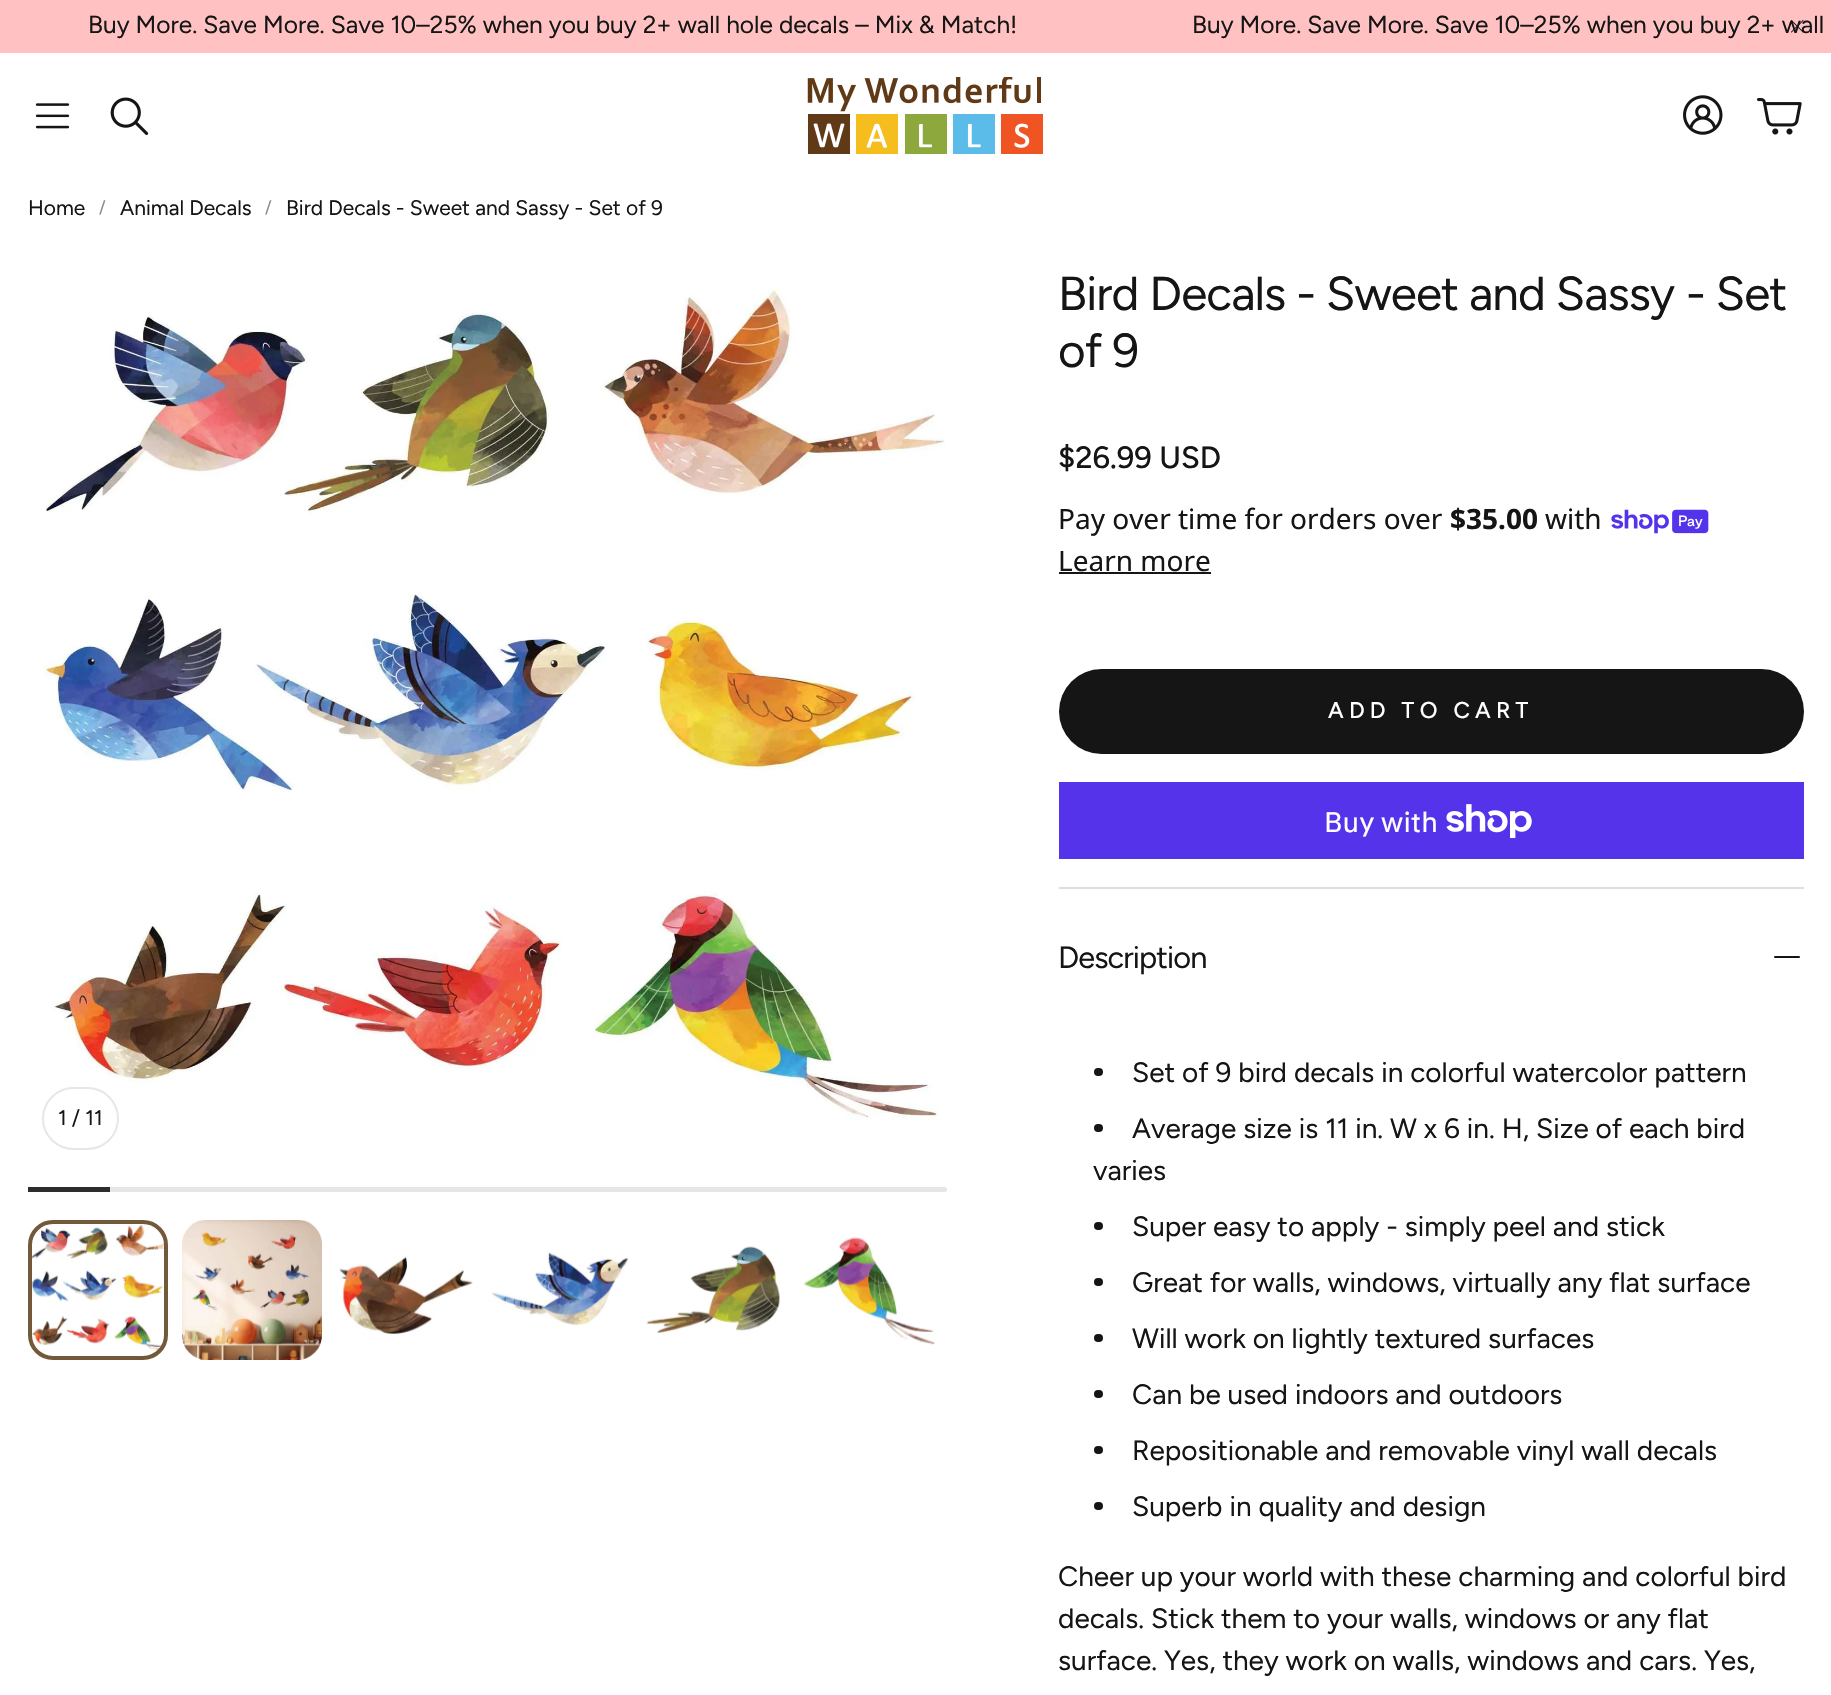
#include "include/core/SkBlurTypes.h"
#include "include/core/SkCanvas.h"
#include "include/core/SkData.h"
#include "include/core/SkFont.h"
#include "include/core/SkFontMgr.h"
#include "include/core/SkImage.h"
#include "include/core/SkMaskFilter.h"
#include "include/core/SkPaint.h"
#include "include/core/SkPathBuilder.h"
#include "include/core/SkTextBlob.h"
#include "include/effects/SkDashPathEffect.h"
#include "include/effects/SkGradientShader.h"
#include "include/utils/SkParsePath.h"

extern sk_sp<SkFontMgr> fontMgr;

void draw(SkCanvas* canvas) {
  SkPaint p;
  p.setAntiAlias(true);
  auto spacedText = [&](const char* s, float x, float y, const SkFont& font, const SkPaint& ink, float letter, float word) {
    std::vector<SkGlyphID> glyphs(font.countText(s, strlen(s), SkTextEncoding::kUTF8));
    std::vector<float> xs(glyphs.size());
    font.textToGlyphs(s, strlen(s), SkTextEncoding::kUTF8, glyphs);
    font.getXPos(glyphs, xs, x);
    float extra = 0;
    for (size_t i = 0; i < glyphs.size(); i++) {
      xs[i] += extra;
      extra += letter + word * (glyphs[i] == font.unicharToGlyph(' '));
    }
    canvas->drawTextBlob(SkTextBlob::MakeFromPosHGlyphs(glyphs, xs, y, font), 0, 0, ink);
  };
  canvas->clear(SK_ColorWHITE);
  p.setColor(SkColorSetRGB(255, 193, 193));
  canvas->drawRect(SkRect::MakeLTRB(0, 0, 1831, 53), p);
  canvas->drawImageRect(SkImages::DeferredFromEncodedData(SkData::MakeFromFileName("images/2.png")), SkRect::MakeLTRB(35, 103, 70, 129), SkSamplingOptions());
  canvas->drawImageRect(SkImages::DeferredFromEncodedData(SkData::MakeFromFileName("images/3.png")), SkRect::MakeLTRB(110, 97, 149, 135), SkSamplingOptions());
  canvas->drawImageRect(SkImages::DeferredFromEncodedData(SkData::MakeFromFileName("images/4.png")), SkRect::MakeLTRB(807, 77, 1043, 154), SkSamplingOptions());
  canvas->drawImageRect(SkImages::DeferredFromEncodedData(SkData::MakeFromFileName("images/5.png")), SkRect::MakeLTRB(1683, 95, 1723, 135), SkSamplingOptions());
  canvas->drawImageRect(SkImages::DeferredFromEncodedData(SkData::MakeFromFileName("images/6.png")), SkRect::MakeLTRB(1757, 98, 1802, 135), SkSamplingOptions());
  canvas->drawImageRect(SkImages::DeferredFromEncodedData(SkData::MakeFromFileName("images/7.png")), SkRect::MakeLTRB(44, 287, 946, 1121), SkSamplingOptions());
  p.setStyle(SkPaint::kStroke_Style);
  p.setStrokeWidth(2);
  p.setColor(SkColorSetRGB(231, 231, 231));
  canvas->drawRoundRect(SkRect::MakeLTRB(43, 1088, 118, 1149), 30.5f, 30.5f, p);
  p.setStyle(SkPaint::kFill_Style);
  p.setColor(SkColorSetRGB(230, 230, 230));
  canvas->drawRoundRect(SkRect::MakeLTRB(28, 1187, 947, 1192), 2.5f, 2.5f, p);
  p.setColor(SkColorSetRGB(45, 45, 45));
  canvas->drawRect(SkRect::MakeLTRB(28, 1187, 110, 1192), p);
  canvas->drawImageRect(SkImages::DeferredFromEncodedData(SkData::MakeFromFileName("images/8.png")), SkRect::MakeLTRB(29, 1224, 168, 1351), SkSamplingOptions());
  p.setStyle(SkPaint::kStroke_Style);
  p.setStrokeWidth(4);
  p.setColor(SkColorSetRGB(113, 89, 57));
  canvas->drawRoundRect(SkRect::MakeLTRB(30, 1222, 166, 1358), 23, 23, p);
  canvas->drawImageRect(SkImages::DeferredFromEncodedData(SkData::MakeFromFileName("images/9.png")), SkRect::MakeLTRB(182, 1220, 322, 1360), SkSamplingOptions());
  canvas->drawImageRect(SkImages::DeferredFromEncodedData(SkData::MakeFromFileName("images/10.png")), SkRect::MakeLTRB(339, 1256, 473, 1336), SkSamplingOptions());
  canvas->drawImageRect(SkImages::DeferredFromEncodedData(SkData::MakeFromFileName("images/11.png")), SkRect::MakeLTRB(491, 1252, 629, 1326), SkSamplingOptions());
  canvas->drawImageRect(SkImages::DeferredFromEncodedData(SkData::MakeFromFileName("images/12.png")), SkRect::MakeLTRB(646, 1246, 780, 1333), SkSamplingOptions());
  canvas->drawImageRect(SkImages::DeferredFromEncodedData(SkData::MakeFromFileName("images/13.png")), SkRect::MakeLTRB(804, 1237, 935, 1345), SkSamplingOptions());
  canvas->drawImageRect(SkImages::DeferredFromEncodedData(SkData::MakeFromFileName("images/14.png")), SkRect::MakeLTRB(1611, 509, 1709, 534), SkSamplingOptions());
  p.setStyle(SkPaint::kFill_Style);
  p.setColor(SkColorSetRGB(21, 21, 21));
  canvas->drawRect(SkRect::MakeLTRB(1059, 572, 1211, 574), p);
  canvas->drawRoundRect(SkRect::MakeLTRB(1059, 669, 1804, 754), 42.5f, 42.5f, p);
  p.setColor(SkColorSetRGB(84, 51, 235));
  canvas->drawRect(SkRect::MakeLTRB(1059, 782, 1804, 859), p);
  canvas->drawImageRect(SkImages::DeferredFromEncodedData(SkData::MakeFromFileName("images/15.png")), SkRect::MakeLTRB(1446, 804, 1532, 838), SkSamplingOptions());
  p.setColor(SkColorSetRGB(222, 222, 222));
  canvas->drawRect(SkRect::MakeLTRB(1059, 887, 1804, 889), p);
  p.setColor(SkColorSetRGB(21, 21, 21));
  canvas->drawRoundRect(SkRect::MakeLTRB(1774, 956, 1800, 958), 1, 1, p);
  canvas->drawRoundRect(SkRect::MakeLTRB(1094, 1068, 1103, 1076), 4, 4, p);
  canvas->drawRoundRect(SkRect::MakeLTRB(1094, 1124, 1103, 1132), 4, 4, p);
  canvas->drawRoundRect(SkRect::MakeLTRB(1094, 1222, 1103, 1230), 4, 4, p);
  canvas->drawRoundRect(SkRect::MakeLTRB(1094, 1278, 1103, 1286), 4, 4, p);
  canvas->drawRoundRect(SkRect::MakeLTRB(1094, 1334, 1103, 1342), 4, 4, p);
  canvas->drawRoundRect(SkRect::MakeLTRB(1094, 1390, 1103, 1398), 4, 4, p);
  canvas->drawRoundRect(SkRect::MakeLTRB(1094, 1446, 1103, 1454), 4, 4, p);
  canvas->drawRoundRect(SkRect::MakeLTRB(1094, 1502, 1103, 1510), 4, 4, p);
  SkFont font1(fontMgr->matchFamilyStyle("Figtree", SkFontStyle::Normal()), 24.5f);
  font1.setSubpixel(true);
  canvas->drawString("Buy More. Save More. Save 10–25% when you buy 2+ wall hole decals – Mix & Match!", 88, 33, font1, p);
  canvas->drawString("Buy More. Save More. Save 10–25% when you buy 2+ wall", 1192, 33, font1, p);
  canvas->drawImageRect(SkImages::DeferredFromEncodedData(SkData::MakeFromFileName("images/1.png")), SkRect::MakeLTRB(1791, 20, 1804, 33), SkSamplingOptions());
  SkFont font2(fontMgr->matchFamilyStyle("Figtree", SkFontStyle::Normal()), 21);
  font2.setSubpixel(true);
  canvas->drawString("Home", 28, 215, font2, p);
  SkFont font3(fontMgr->matchFamilyStyle("Figtree", SkFontStyle::Normal()), 17);
  font3.setSubpixel(true);
  p.setColor(SkColorSetRGB(138, 138, 138));
  canvas->drawString("/", 99, 213, font3, p);
  p.setColor(SkColorSetRGB(21, 21, 21));
  canvas->drawString("Animal Decals", 120, 215, font2, p);
  p.setColor(SkColorSetRGB(138, 138, 138));
  canvas->drawString("/", 265, 213, font3, p);
  p.setColor(SkColorSetRGB(21, 21, 21));
  canvas->drawString("Bird Decals - Sweet and Sassy - Set of 9", 286, 215, font2, p);
  canvas->drawString("1 / 11", 58, 1125, font2, p);
  SkFont font4(fontMgr->matchFamilyStyle("Figtree", SkFontStyle::Normal()), 47.6f);
  font4.setSubpixel(true);
  spacedText("Bird Decals - Sweet and Sassy", 1058, 310, font4, p, -0.9f, 0);
  spacedText("- Set", 1686, 310, font4, p, -0.9f, 0);
  spacedText("of 9", 1058, 367, font4, p, -0.9f, 0);
  SkFont font5(fontMgr->matchFamilyStyle("Figtree", SkFontStyle(500, SkFontStyle::kNormal_Width, SkFontStyle::kUpright_Slant)), 30.75f);
  font5.setSubpixel(true);
  canvas->drawString("$26.99 USD", 1058, 468, font5, p);
  SkFont font6(fontMgr->matchFamilyStyle("Noto Sans", SkFontStyle::Normal()), 28);
  font6.setSubpixel(true);
  canvas->drawString("Pay over time for orders over", 1058, 529, font6, p);
  SkFont font7(fontMgr->matchFamilyStyle("Noto Sans", SkFontStyle::Bold()), 28);
  font7.setSubpixel(true);
  canvas->drawString("$35.00", 1450, 529, font7, p);
  canvas->drawString("with", 1545, 529, font6, p);
  canvas->drawString("Learn more", 1058, 571, font6, p);
  SkFont font8(fontMgr->matchFamilyStyle("Figtree", SkFontStyle(500, SkFontStyle::kNormal_Width, SkFontStyle::kUpright_Slant)), 22.75f);
  font8.setSubpixel(true);
  p.setColor(SK_ColorWHITE);
  spacedText("ADD TO CART", 1328, 718, font8, p, 5.25f, 0);
  SkFont font9(fontMgr->matchFamilyStyle("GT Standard", SkFontStyle::Normal()), 28);
  font9.setSubpixel(true);
  canvas->drawString("Buy with", 1324, 832, font9, p);
  SkFont font10(fontMgr->matchFamilyStyle("Figtree", SkFontStyle::Normal()), 30.75f);
  font10.setSubpixel(true);
  p.setColor(SkColorSetRGB(21, 21, 21));
  spacedText("Description", 1058, 968, font10, p, -0.9f, 0);
  SkFont font11(fontMgr->matchFamilyStyle("Figtree", SkFontStyle::Normal()), 28);
  font11.setSubpixel(true);
  canvas->drawString("Set of 9 bird decals in colorful watercolor pattern", 1132, 1082, font11, p);
  canvas->drawString("Average size is 11 in. W x 6 in. H, Size of each bird", 1132, 1138, font11, p);
  canvas->drawString("varies", 1093, 1180, font11, p);
  canvas->drawString("Super easy to apply - simply peel and stick", 1132, 1236, font11, p);
  canvas->drawString("Great for walls, windows, virtually any flat surface", 1132, 1292, font11, p);
  canvas->drawString("Will work on lightly textured surfaces", 1132, 1348, font11, p);
  canvas->drawString("Can be used indoors and outdoors", 1132, 1404, font11, p);
  canvas->drawString("Repositionable and removable vinyl wall decals", 1132, 1460, font11, p);
  canvas->drawString("Superb in quality and design", 1132, 1516, font11, p);
  canvas->drawString("Cheer up your world with these charming and colorful bird", 1058, 1586, font11, p);
  canvas->drawString("decals. Stick them to your walls, windows or any flat", 1058, 1628, font11, p);
  canvas->drawString("surface. Yes, they work on walls, windows and cars. Yes,", 1058, 1670, font11, p);
}
